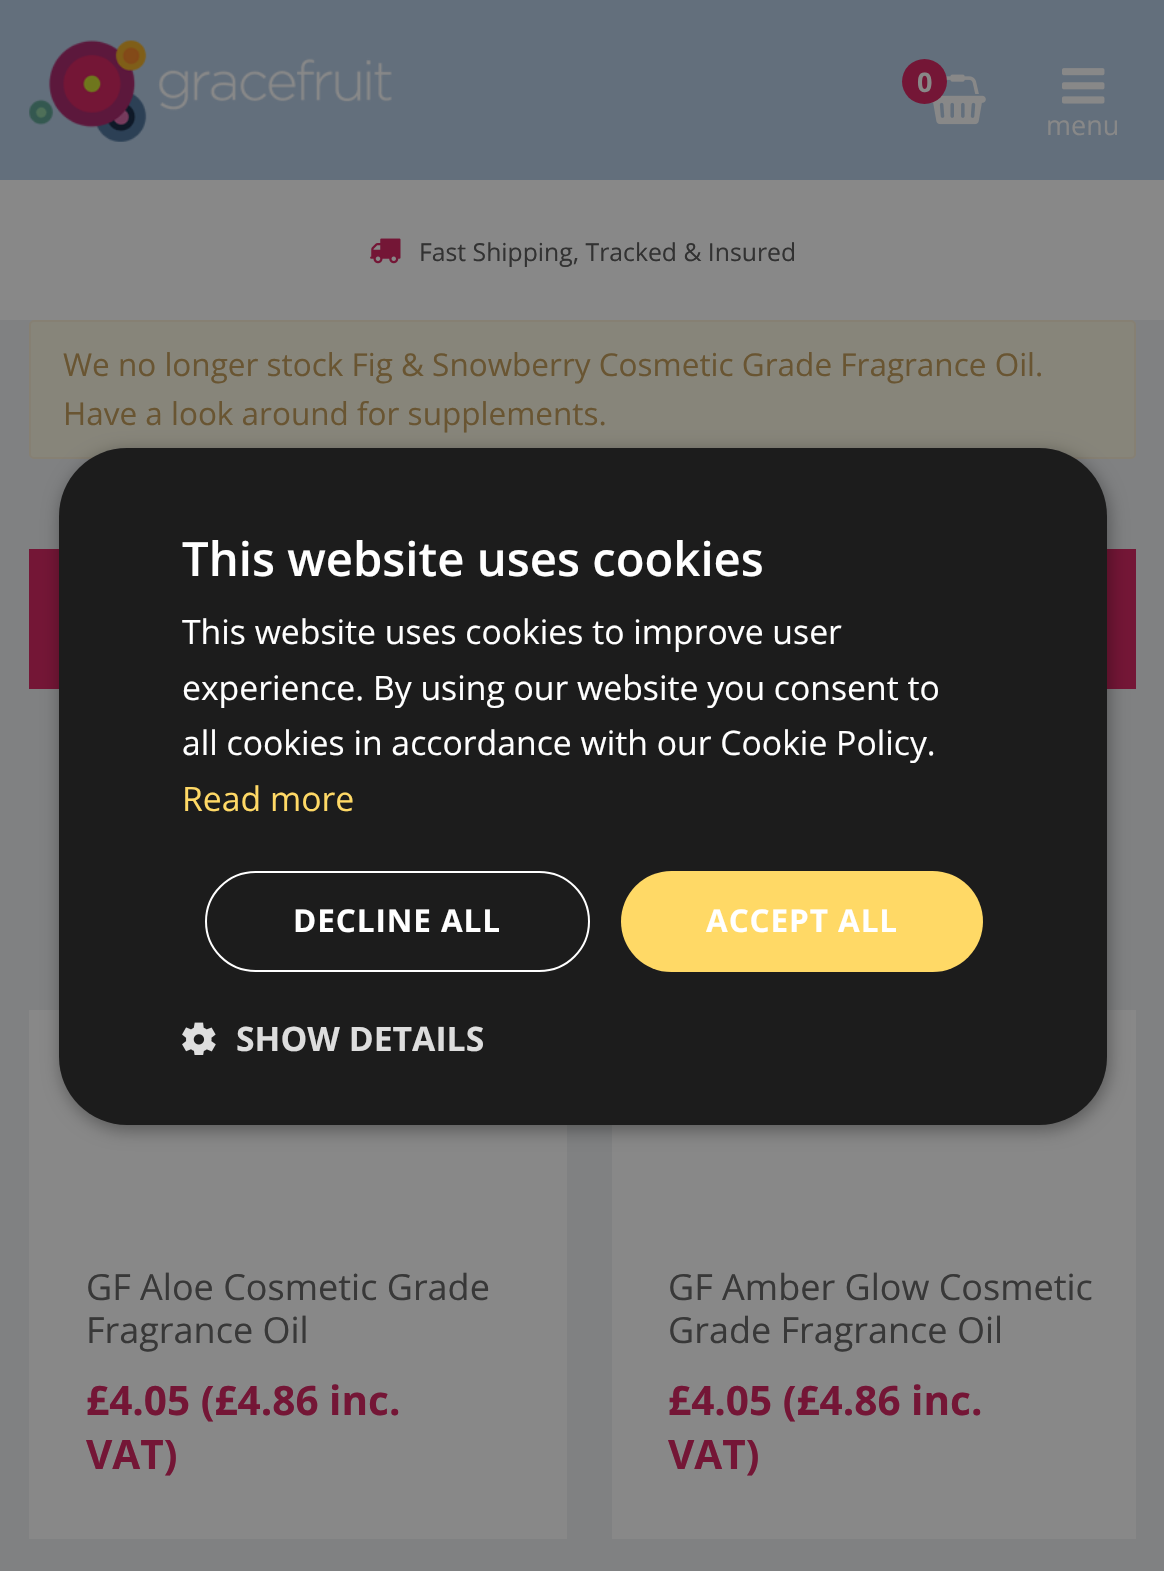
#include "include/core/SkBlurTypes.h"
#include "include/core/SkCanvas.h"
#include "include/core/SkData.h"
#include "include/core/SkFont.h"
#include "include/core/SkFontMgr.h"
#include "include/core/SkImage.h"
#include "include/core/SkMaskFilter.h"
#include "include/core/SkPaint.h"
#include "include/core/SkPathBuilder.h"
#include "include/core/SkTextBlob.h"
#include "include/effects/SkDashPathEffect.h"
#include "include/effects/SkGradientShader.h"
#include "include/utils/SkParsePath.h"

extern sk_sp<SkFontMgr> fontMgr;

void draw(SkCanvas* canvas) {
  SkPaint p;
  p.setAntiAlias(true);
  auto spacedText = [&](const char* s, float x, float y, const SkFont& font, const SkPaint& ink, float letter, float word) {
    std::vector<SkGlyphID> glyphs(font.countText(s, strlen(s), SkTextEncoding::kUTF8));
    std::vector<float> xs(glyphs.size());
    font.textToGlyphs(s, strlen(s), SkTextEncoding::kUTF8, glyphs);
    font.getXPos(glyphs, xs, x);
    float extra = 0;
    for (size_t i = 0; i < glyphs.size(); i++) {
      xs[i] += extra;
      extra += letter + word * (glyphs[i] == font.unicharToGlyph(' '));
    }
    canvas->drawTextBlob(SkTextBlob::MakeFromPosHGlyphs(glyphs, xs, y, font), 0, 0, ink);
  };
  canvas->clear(SkColorSetRGB(128, 129, 130));
  p.setColor(SkColorSetRGB(99, 111, 124));
  canvas->drawRect(SkRect::MakeLTRB(0, 0, 1164, 180), p);
  canvas->drawImageRect(SkImages::DeferredFromEncodedData(SkData::MakeFromFileName("images/1.png")), SkRect::MakeLTRB(29, 40, 392, 142), SkSamplingOptions());
  canvas->drawImageRect(SkImages::DeferredFromEncodedData(SkData::MakeFromFileName("images/2.png")), SkRect::MakeLTRB(931, 74, 986, 125), SkSamplingOptions());
  p.setColor(SkColorSetRGB(116, 22, 54));
  canvas->drawCircle(924.5f, 81.5f, 22.5f, p);
  canvas->drawImageRect(SkImages::DeferredFromEncodedData(SkData::MakeFromFileName("images/3.png")), SkRect::MakeLTRB(1062, 68, 1105, 104), SkSamplingOptions());
  p.setColor(SkColorSetRGB(136, 136, 136));
  canvas->drawRect(SkRect::MakeLTRB(0, 180, 1164, 320), p);
  canvas->drawImageRect(SkImages::DeferredFromEncodedData(SkData::MakeFromFileName("images/4.png")), SkRect::MakeLTRB(370, 238, 401, 264), SkSamplingOptions());
  p.setColor(SkColorSetRGB(135, 133, 122));
  canvas->drawRoundRect(SkRect::MakeLTRB(30, 321, 1135, 458), 4, 4, p);
  p.setStyle(SkPaint::kStroke_Style);
  p.setStrokeWidth(2);
  p.setColor(SkColorSetRGB(134, 128, 115));
  canvas->drawRoundRect(SkRect::MakeLTRB(30, 321, 1135, 458), 4, 4, p);
  p.setStyle(SkPaint::kFill_Style);
  p.setColor(SkColorSetRGB(116, 22, 54));
  canvas->drawRect(SkRect::MakeLTRB(29, 549, 1136, 689), p);
  p.setColor(SkColorSetRGB(136, 136, 136));
  canvas->drawRect(SkRect::MakeLTRB(29, 1010, 567, 1539), p);
  canvas->drawRect(SkRect::MakeLTRB(612, 1010, 1136, 1539), p);
  p.setColor(SkColorSetARGB(89, 0, 0, 0));
  p.setMaskFilter(SkMaskFilter::MakeBlur(kNormal_SkBlurStyle, 9));
  canvas->drawRoundRect(SkRect::MakeLTRB(61, 452, 1109, 1130), 68, 68, p);
  p.setMaskFilter(nullptr);
  p.setColor(SkColorSetRGB(28, 28, 28));
  canvas->drawRoundRect(SkRect::MakeLTRB(59, 448, 1107, 1125), 68, 68, p);
  p.setStyle(SkPaint::kStroke_Style);
  p.setColor(SK_ColorWHITE);
  canvas->drawRoundRect(SkRect::MakeLTRB(206, 872, 589, 971), 49.5f, 49.5f, p);
  p.setStyle(SkPaint::kFill_Style);
  p.setColor(SkColorSetRGB(255, 217, 102));
  canvas->drawRoundRect(SkRect::MakeLTRB(621, 871, 983, 972), 50.5f, 50.5f, p);
  canvas->drawImageRect(SkImages::DeferredFromEncodedData(SkData::MakeFromFileName("images/5.png")), SkRect::MakeLTRB(182, 1022, 216, 1055), SkSamplingOptions());
  SkFont font1(fontMgr->matchFamilyStyle("Open Sans", SkFontStyle::Bold()), 27);
  font1.setSubpixel(true);
  p.setColor(SkColorSetRGB(136, 136, 136));
  canvas->drawString("0", 917, 92, font1, p);
  SkFont font2(fontMgr->matchFamilyStyle("Open Sans", SkFontStyle::Normal()), 27);
  font2.setSubpixel(true);
  canvas->drawString("menu", 1046, 135, font2, p);
  SkFont font3(fontMgr->matchFamilyStyle("Open Sans", SkFontStyle::Normal()), 24.75f);
  font3.setSubpixel(true);
  p.setColor(SkColorSetRGB(50, 50, 50));
  canvas->drawString("Fast Shipping, Tracked & Insured", 419, 261, font3, p);
  SkFont font4(fontMgr->matchFamilyStyle("Open Sans", SkFontStyle::Normal()), 31.5f);
  font4.setSubpixel(true);
  p.setColor(SkColorSetRGB(105, 85, 50));
  canvas->drawString("We no longer stock Fig & Snowberry Cosmetic Grade Fragrance Oil.", 63, 376, font4, p);
  canvas->drawString("Have a look around for supplements.", 63, 425, font4, p);
  SkFont font5(fontMgr->matchFamilyStyle("Open Sans", SkFontStyle::Normal()), 36);
  font5.setSubpixel(true);
  p.setColor(SkColorSetRGB(56, 56, 56));
  canvas->drawString("GF Aloe Cosmetic Grade", 86, 1300, font5, p);
  canvas->drawString("Fragrance Oil", 86, 1343, font5, p);
  SkFont font6(fontMgr->matchFamilyStyle("Open Sans", SkFontStyle::Bold()), 40.5f);
  font6.setSubpixel(true);
  p.setColor(SkColorSetRGB(116, 22, 54));
  canvas->drawString("£4.05 (£4.86 inc.", 86, 1415, font6, p);
  canvas->drawString("VAT)", 86, 1469, font6, p);
  p.setColor(SkColorSetRGB(56, 56, 56));
  canvas->drawString("GF Amber Glow Cosmetic", 668, 1300, font5, p);
  canvas->drawString("Grade Fragrance Oil", 668, 1343, font5, p);
  p.setColor(SkColorSetRGB(116, 22, 54));
  canvas->drawString("£4.05 (£4.86 inc.", 668, 1415, font6, p);
  canvas->drawString("VAT)", 668, 1469, font6, p);
  SkFont font7(fontMgr->matchFamilyStyle("Open Sans", SkFontStyle(600, SkFontStyle::kNormal_Width, SkFontStyle::kUpright_Slant)), 47.25f);
  font7.setSubpixel(true);
  p.setColor(SK_ColorWHITE);
  canvas->drawString("This website uses cookies", 182, 576, font7, p);
  SkFont font8(fontMgr->matchFamilyStyle("Open Sans", SkFontStyle::Normal()), 33.75f);
  font8.setSubpixel(true);
  canvas->drawString("This website uses cookies to improve user", 182, 644, font8, p);
  canvas->drawString("experience. By using our website you consent to", 182, 700, font8, p);
  canvas->drawString("all cookies in accordance with our Cookie Policy.", 182, 755, font8, p);
  p.setColor(SkColorSetRGB(255, 217, 102));
  canvas->drawString("Read more", 182, 811, font8, p);
  SkFont font9(fontMgr->matchFamilyStyle("Open Sans", SkFontStyle::Bold()), 31.5f);
  font9.setSubpixel(true);
  p.setColor(SK_ColorWHITE);
  spacedText("DECLINE ALL", 293, 932, font9, p, 0.9f, 0);
  spacedText("ACCEPT ALL", 706, 932, font9, p, 0.9f, 0);
  SkFont font10(fontMgr->matchFamilyStyle("Open Sans", SkFontStyle::Bold()), 33.75f);
  font10.setSubpixel(true);
  p.setColor(SkColorSetRGB(221, 221, 221));
  canvas->drawString("SHOW DETAILS", 236, 1051, font10, p);
}
